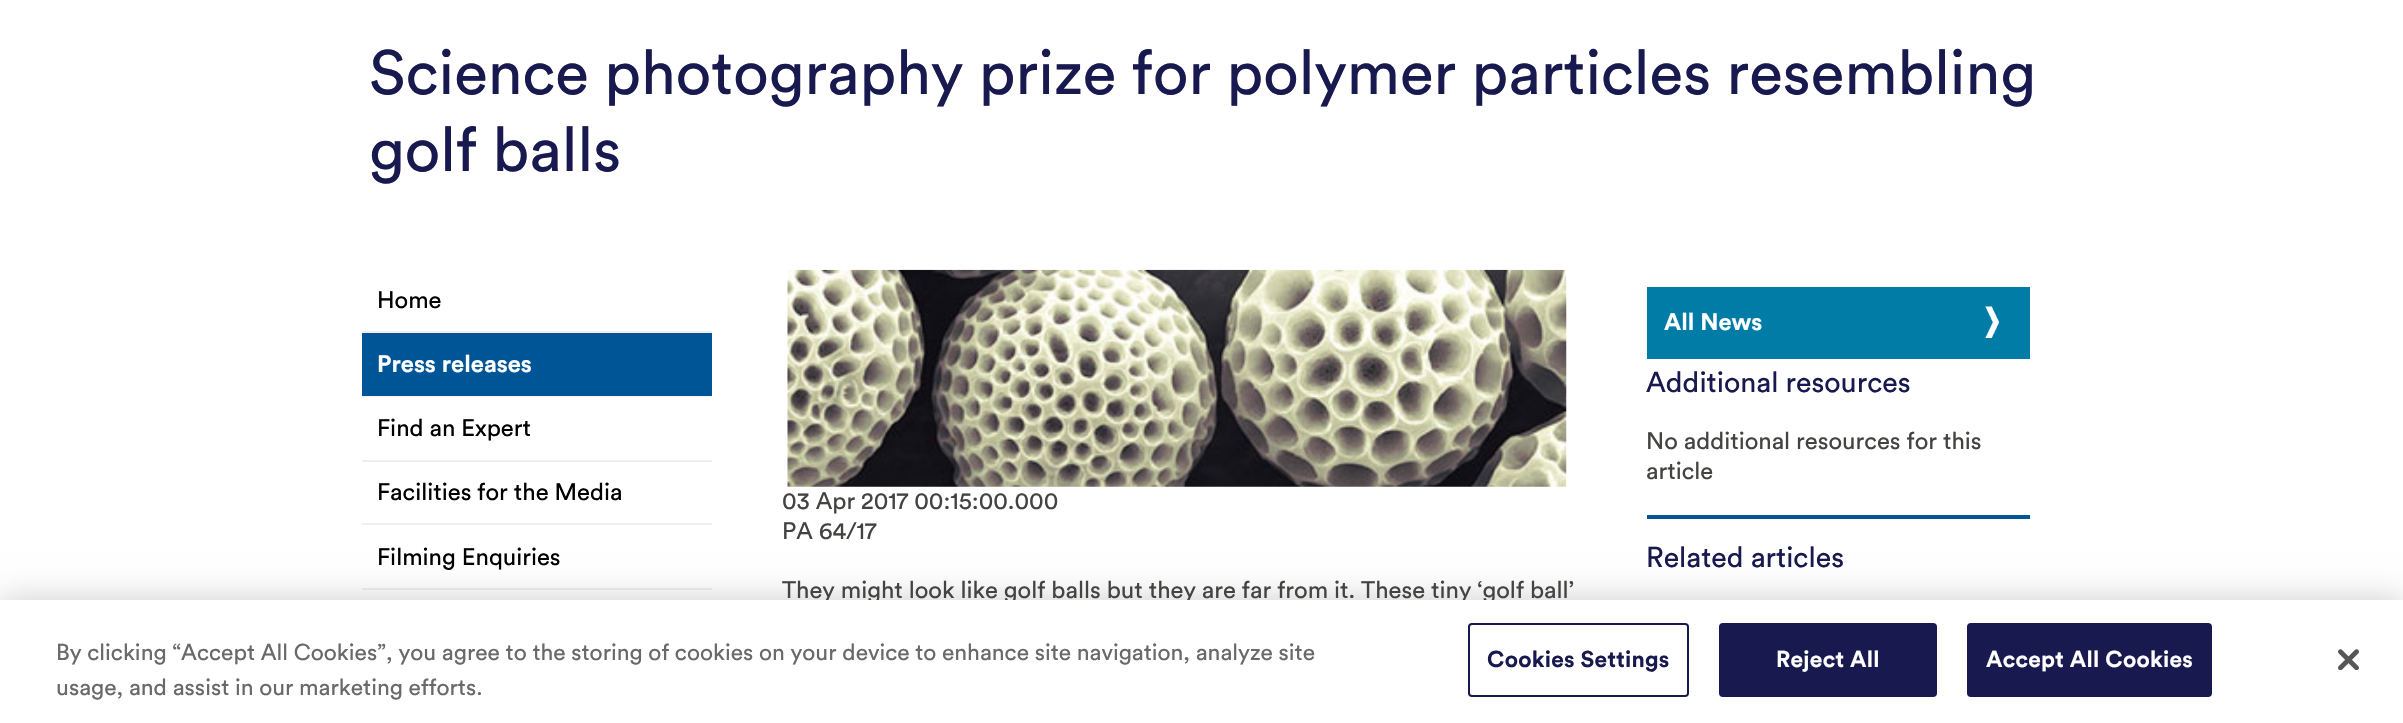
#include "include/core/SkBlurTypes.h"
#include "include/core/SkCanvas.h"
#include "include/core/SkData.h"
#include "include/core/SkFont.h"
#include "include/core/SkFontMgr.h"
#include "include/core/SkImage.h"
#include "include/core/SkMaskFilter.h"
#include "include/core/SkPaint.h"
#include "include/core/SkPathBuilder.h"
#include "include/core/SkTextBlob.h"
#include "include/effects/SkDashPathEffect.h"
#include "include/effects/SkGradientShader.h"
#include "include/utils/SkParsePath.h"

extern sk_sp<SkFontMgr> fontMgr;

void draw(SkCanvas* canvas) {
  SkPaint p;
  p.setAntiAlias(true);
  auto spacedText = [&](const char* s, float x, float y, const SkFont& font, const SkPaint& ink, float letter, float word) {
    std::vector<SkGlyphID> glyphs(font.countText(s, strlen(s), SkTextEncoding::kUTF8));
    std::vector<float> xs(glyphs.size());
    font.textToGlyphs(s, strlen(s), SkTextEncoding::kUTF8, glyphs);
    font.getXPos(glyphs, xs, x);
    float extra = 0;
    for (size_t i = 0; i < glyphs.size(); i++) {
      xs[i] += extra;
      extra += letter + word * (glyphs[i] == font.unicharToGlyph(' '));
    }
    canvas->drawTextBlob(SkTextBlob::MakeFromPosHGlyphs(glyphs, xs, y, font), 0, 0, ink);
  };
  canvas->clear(SK_ColorWHITE);
  p.setColor(SkColorSetRGB(239, 239, 239));
  canvas->drawRect(SkRect::MakeLTRB(362, 331, 712, 333), p);
  canvas->drawRect(SkRect::MakeLTRB(362, 396, 712, 397), p);
  p.setColor(SkColorSetRGB(0, 85, 151));
  canvas->drawRect(SkRect::MakeLTRB(362, 333, 712, 396), p);
  p.setColor(SkColorSetRGB(239, 239, 239));
  canvas->drawRect(SkRect::MakeLTRB(362, 460, 712, 462), p);
  canvas->drawRect(SkRect::MakeLTRB(362, 523, 712, 525), p);
  canvas->drawRect(SkRect::MakeLTRB(362, 588, 712, 590), p);
  canvas->drawImageRect(SkImages::DeferredFromEncodedData(SkData::MakeFromFileName("images/1.png")), SkRect::MakeLTRB(787, 269, 1567, 487), SkSamplingOptions());
  p.setColor(SkColorSetRGB(0, 124, 167));
  canvas->drawRect(SkRect::MakeLTRB(1647, 287, 2030, 359), p);
  canvas->drawImageRect(SkImages::DeferredFromEncodedData(SkData::MakeFromFileName("images/2.png")), SkRect::MakeLTRB(1985, 306, 1999, 338), SkSamplingOptions());
  p.setColor(SkColorSetRGB(0, 85, 151));
  canvas->drawRect(SkRect::MakeLTRB(1647, 515, 2030, 519), p);
  p.setColor(SkColorSetARGB(51, 0, 0, 0));
  p.setMaskFilter(SkMaskFilter::MakeBlur(kNormal_SkBlurStyle, 16));
  canvas->drawRect(SkRect::MakeLTRB(0, 600, 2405, 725), p);
  p.setMaskFilter(nullptr);
  SkFont font1(fontMgr->matchFamilyStyle("Circular", SkFontStyle::Normal()), 61.9f);
  font1.setSubpixel(true);
  p.setColor(SkColorSetRGB(24, 25, 79));
  canvas->drawString("Science photography prize for polymer particles resembling", 369, 94, font1, p);
  canvas->drawString("golf balls", 369, 171, font1, p);
  SkFont font2(fontMgr->matchFamilyStyle("Circular", SkFontStyle::Normal()), 23.8f);
  font2.setSubpixel(true);
  p.setColor(SK_ColorBLACK);
  canvas->drawString("Home", 377, 308, font2, p);
  SkFont font3(fontMgr->matchFamilyStyle("Circular", SkFontStyle::Bold()), 23.8f);
  font3.setSubpixel(true);
  p.setColor(SK_ColorWHITE);
  canvas->drawString("Press releases", 377, 372, font3, p);
  p.setColor(SK_ColorBLACK);
  canvas->drawString("Find an Expert", 377, 436, font2, p);
  canvas->drawString("Facilities for the Media", 377, 500, font2, p);
  canvas->drawString("Filming Enquiries", 377, 565, font2, p);
  p.setColor(SkColorSetRGB(67, 67, 65));
  canvas->drawString("03 Apr 2017 00:15:00.000", 782, 509, font2, p);
  canvas->drawString("PA 64/17", 782, 539, font2, p);
  canvas->drawString("They might look like golf balls but they are far from it. These tiny ‘golf ball’", 782, 598, font2, p);
  p.setColor(SK_ColorWHITE);
  canvas->drawString("All News", 1664, 330, font3, p);
  SkFont font4(fontMgr->matchFamilyStyle("Circular", SkFontStyle::Normal()), 28.5f);
  font4.setSubpixel(true);
  p.setColor(SkColorSetRGB(24, 25, 79));
  canvas->drawString("Additional resources", 1646, 392, font4, p);
  p.setColor(SkColorSetRGB(67, 67, 65));
  canvas->drawString("No additional resources for this", 1646, 449, font2, p);
  canvas->drawString("article", 1646, 479, font2, p);
  p.setColor(SkColorSetRGB(24, 25, 79));
  canvas->drawString("Related articles", 1646, 567, font4, p);
  p.setColor(SK_ColorWHITE);
  canvas->drawRect(SkRect::MakeLTRB(0, 600, 2403, 723), p);
  SkFont font5(fontMgr->matchFamilyStyle("Circular", SkFontStyle::Normal()), 22.75f);
  font5.setSubpixel(true);
  p.setColor(SkColorSetRGB(105, 105, 105));
  canvas->drawString("By clicking “Accept All Cookies”, you agree to the storing of cookies on your device to enhance site navigation, analyze site", 56, 660, font5, p);
  canvas->drawString("usage, and assist in our marketing efforts.", 56, 695, font5, p);
  p.setStyle(SkPaint::kStroke_Style);
  p.setStrokeWidth(2);
  p.setColor(SkColorSetRGB(24, 25, 79));
  canvas->drawRoundRect(SkRect::MakeLTRB(1469, 624, 1688, 696), 3, 3, p);
  SkFont font6(fontMgr->matchFamilyStyle("Circular", SkFontStyle::Bold()), 22.75f);
  font6.setSubpixel(true);
  p.setStyle(SkPaint::kFill_Style);
  spacedText("Cookies Settings", 1487, 667, font6, p, 0.25f, 0);
  canvas->drawRoundRect(SkRect::MakeLTRB(1720, 624, 1936, 696), 3, 3, p);
  p.setStyle(SkPaint::kStroke_Style);
  canvas->drawRoundRect(SkRect::MakeLTRB(1720, 624, 1936, 696), 3, 3, p);
  p.setStyle(SkPaint::kFill_Style);
  p.setColor(SK_ColorWHITE);
  spacedText("Reject All", 1776, 667, font6, p, 0.25f, 0);
  p.setColor(SkColorSetRGB(24, 25, 79));
  canvas->drawRoundRect(SkRect::MakeLTRB(1968, 624, 2211, 696), 3, 3, p);
  p.setStyle(SkPaint::kStroke_Style);
  canvas->drawRoundRect(SkRect::MakeLTRB(1968, 624, 2211, 696), 3, 3, p);
  p.setStyle(SkPaint::kFill_Style);
  p.setColor(SK_ColorWHITE);
  spacedText("Accept All Cookies", 1986, 667, font6, p, 0.25f, 0);
  canvas->drawImageRect(SkImages::DeferredFromEncodedData(SkData::MakeFromFileName("images/3.png")), SkRect::MakeLTRB(2338, 649, 2359, 670), SkSamplingOptions());
}
